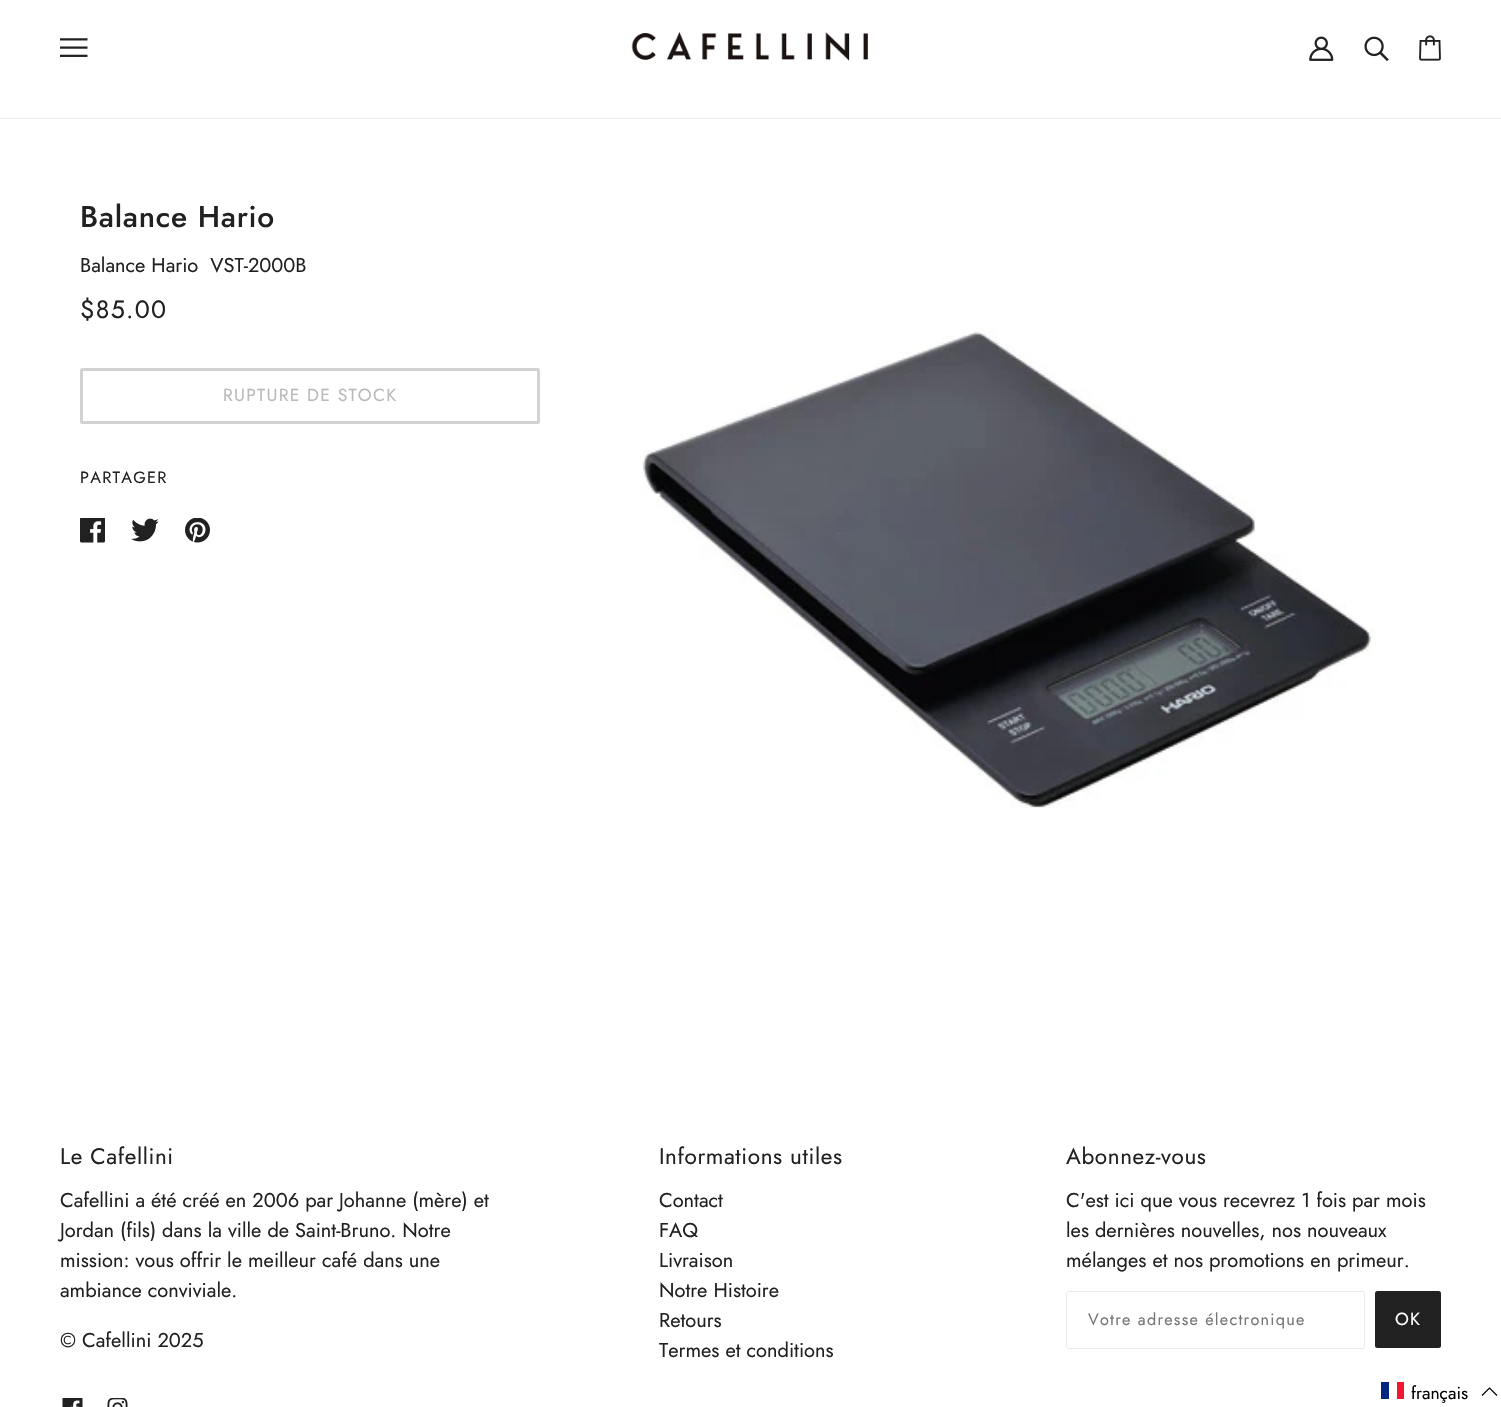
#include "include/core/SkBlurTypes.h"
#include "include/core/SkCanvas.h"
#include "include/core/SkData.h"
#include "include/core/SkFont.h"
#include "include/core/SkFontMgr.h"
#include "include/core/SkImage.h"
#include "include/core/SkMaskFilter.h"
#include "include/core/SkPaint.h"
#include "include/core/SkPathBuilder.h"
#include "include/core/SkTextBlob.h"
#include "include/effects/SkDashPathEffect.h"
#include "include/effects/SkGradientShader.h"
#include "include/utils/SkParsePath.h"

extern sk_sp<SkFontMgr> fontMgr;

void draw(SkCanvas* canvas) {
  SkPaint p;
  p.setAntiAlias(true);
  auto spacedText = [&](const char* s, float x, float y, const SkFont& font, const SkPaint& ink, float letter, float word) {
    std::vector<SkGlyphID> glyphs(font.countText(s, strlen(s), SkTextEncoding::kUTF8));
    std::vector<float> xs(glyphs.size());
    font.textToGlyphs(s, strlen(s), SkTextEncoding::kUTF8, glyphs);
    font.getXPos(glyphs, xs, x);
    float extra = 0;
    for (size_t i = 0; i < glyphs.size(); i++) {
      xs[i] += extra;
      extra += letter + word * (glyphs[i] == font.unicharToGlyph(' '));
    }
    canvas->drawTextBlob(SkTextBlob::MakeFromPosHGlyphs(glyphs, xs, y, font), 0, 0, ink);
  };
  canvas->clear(SK_ColorWHITE);
  p.setColor(SkColorSetRGB(234, 234, 234));
  canvas->drawRect(SkRect::MakeLTRB(0, 118, 1501, 119), p);
  canvas->drawImageRect(SkImages::DeferredFromEncodedData(SkData::MakeFromFileName("images/1.png")), SkRect::MakeLTRB(60, 38, 88, 57), SkSamplingOptions());
  canvas->drawImageRect(SkImages::DeferredFromEncodedData(SkData::MakeFromFileName("images/2.png")), SkRect::MakeLTRB(631, 32, 868, 61), SkSamplingOptions());
  canvas->drawImageRect(SkImages::DeferredFromEncodedData(SkData::MakeFromFileName("images/3.png")), SkRect::MakeLTRB(1309, 36, 1334, 61), SkSamplingOptions());
  canvas->drawImageRect(SkImages::DeferredFromEncodedData(SkData::MakeFromFileName("images/4.png")), SkRect::MakeLTRB(1364, 36, 1389, 61), SkSamplingOptions());
  canvas->drawImageRect(SkImages::DeferredFromEncodedData(SkData::MakeFromFileName("images/5.png")), SkRect::MakeLTRB(1419, 35, 1441, 61), SkSamplingOptions());
  p.setStyle(SkPaint::kStroke_Style);
  p.setStrokeWidth(3);
  p.setColor(SkColorSetRGB(210, 210, 210));
  canvas->drawRoundRect(SkRect::MakeLTRB(81.5f, 369.5f, 538.5f, 422.5f), 1, 1, p);
  canvas->drawImageRect(SkImages::DeferredFromEncodedData(SkData::MakeFromFileName("images/6.png")), SkRect::MakeLTRB(80, 518, 105, 543), SkSamplingOptions());
  canvas->drawImageRect(SkImages::DeferredFromEncodedData(SkData::MakeFromFileName("images/7.png")), SkRect::MakeLTRB(131, 518, 159, 542), SkSamplingOptions());
  canvas->drawImageRect(SkImages::DeferredFromEncodedData(SkData::MakeFromFileName("images/8.png")), SkRect::MakeLTRB(185, 518, 210, 543), SkSamplingOptions());
  canvas->drawImageRect(SkImages::DeferredFromEncodedData(SkData::MakeFromFileName("images/9.png")), SkRect::MakeLTRB(642, 329, 1376, 809), SkSamplingOptions());
  canvas->drawImageRect(SkImages::DeferredFromEncodedData(SkData::MakeFromFileName("images/10.png")), SkRect::MakeLTRB(62, 1398, 83, 1407), SkSamplingOptions());
  canvas->drawImageRect(SkImages::DeferredFromEncodedData(SkData::MakeFromFileName("images/11.png")), SkRect::MakeLTRB(107, 1398, 128, 1407), SkSamplingOptions());
  p.setStrokeWidth(1);
  p.setColor(SkColorSetRGB(234, 234, 234));
  canvas->drawRoundRect(SkRect::MakeLTRB(1066.5f, 1291.5f, 1364.5f, 1348.5f), 2, 2, p);
  p.setStyle(SkPaint::kFill_Style);
  p.setColor(SkColorSetRGB(33, 33, 33));
  canvas->drawRoundRect(SkRect::MakeLTRB(1375, 1291, 1441, 1348), 2.5f, 2.5f, p);
  p.setColor(SkColorSetRGB(0, 38, 127));
  canvas->drawRect(SkRect::MakeLTRB(1381, 1382, 1389, 1399), p);
  p.setColor(SkColorSetRGB(243, 24, 48));
  canvas->drawRect(SkRect::MakeLTRB(1397, 1382, 1404, 1399), p);
  p.setStyle(SkPaint::kStroke_Style);
  p.setStrokeWidth(1.2f);
  p.setColor(SK_ColorBLACK);
  canvas->drawPath(SkPathBuilder().moveTo(1497, 1395.5f).lineTo(1489.5f, 1388).lineTo(1482, 1395.5f).detach(), p);
  SkFont font1(fontMgr->matchFamilyStyle("Jost", SkFontStyle(500, SkFontStyle::kNormal_Width, SkFontStyle::kUpright_Slant)), 30);
  font1.setSubpixel(true);
  p.setStyle(SkPaint::kFill_Style);
  p.setColor(SkColorSetRGB(33, 33, 33));
  spacedText("Balance Hario", 80, 227, font1, p, 0.75f, 0);
  SkFont font2(fontMgr->matchFamilyStyle("Jost", SkFontStyle::Normal()), 20);
  font2.setSubpixel(true);
  canvas->drawString("Balance Hario  VST-2000B", 80, 272, font2, p);
  SkFont font3(fontMgr->matchFamilyStyle("Jost", SkFontStyle::Normal()), 25);
  font3.setSubpixel(true);
  spacedText("$85.00", 80, 318, font3, p, 1.25f, 0);
  SkFont font4(fontMgr->matchFamilyStyle("Jost", SkFontStyle::Normal()), 17.5f);
  font4.setSubpixel(true);
  p.setColor(SkColorSetRGB(185, 185, 185));
  spacedText("RUPTURE DE STOCK", 223, 401, font4, p, 1.25f, 0);
  SkFont font5(fontMgr->matchFamilyStyle("Jost", SkFontStyle::Normal()), 16.25f);
  font5.setSubpixel(true);
  p.setColor(SkColorSetRGB(33, 33, 33));
  spacedText("PARTAGER", 80, 483, font5, p, 1.25f, 0);
  SkFont font6(fontMgr->matchFamilyStyle("Jost", SkFontStyle::Normal()), 22.5f);
  font6.setSubpixel(true);
  spacedText("Le Cafellini", 60, 1164, font6, p, 0.6f, 0);
  canvas->drawString("Cafellini a été créé en 2006 par Johanne (mère) et", 60, 1207, font2, p);
  canvas->drawString("Jordan (fils) dans la ville de Saint-Bruno. Notre", 60, 1237, font2, p);
  canvas->drawString("mission: vous offrir le meilleur café dans une", 60, 1267, font2, p);
  canvas->drawString("ambiance conviviale.", 60, 1297, font2, p);
  canvas->drawString("© Cafellini 2025", 60, 1347, font2, p);
  spacedText("Informations utiles", 659, 1164, font6, p, 0.6f, 0);
  canvas->drawString("Contact", 659, 1207, font2, p);
  canvas->drawString("FAQ", 659, 1237, font2, p);
  canvas->drawString("Livraison", 659, 1267, font2, p);
  canvas->drawString("Notre Histoire", 659, 1297, font2, p);
  canvas->drawString("Retours", 659, 1327, font2, p);
  canvas->drawString("Termes et conditions", 659, 1357, font2, p);
  spacedText("Abonnez-vous", 1066, 1164, font6, p, 0.6f, 0);
  canvas->drawString("C'est ici que vous recevrez 1 fois par mois", 1066, 1207, font2, p);
  canvas->drawString("les dernières nouvelles, nos nouveaux", 1066, 1237, font2, p);
  canvas->drawString("mélanges et nos promotions en primeur.", 1066, 1267, font2, p);
  p.setColor(SkColorSetRGB(117, 117, 117));
  spacedText("Votre adresse électronique", 1088, 1325, font5, p, 1.25f, 0);
  p.setColor(SK_ColorWHITE);
  spacedText("OK", 1395, 1325, font4, p, 1.25f, 0);
  p.setColor(SK_ColorBLACK);
  canvas->drawString("français", 1411, 1399, font4, p);
}
